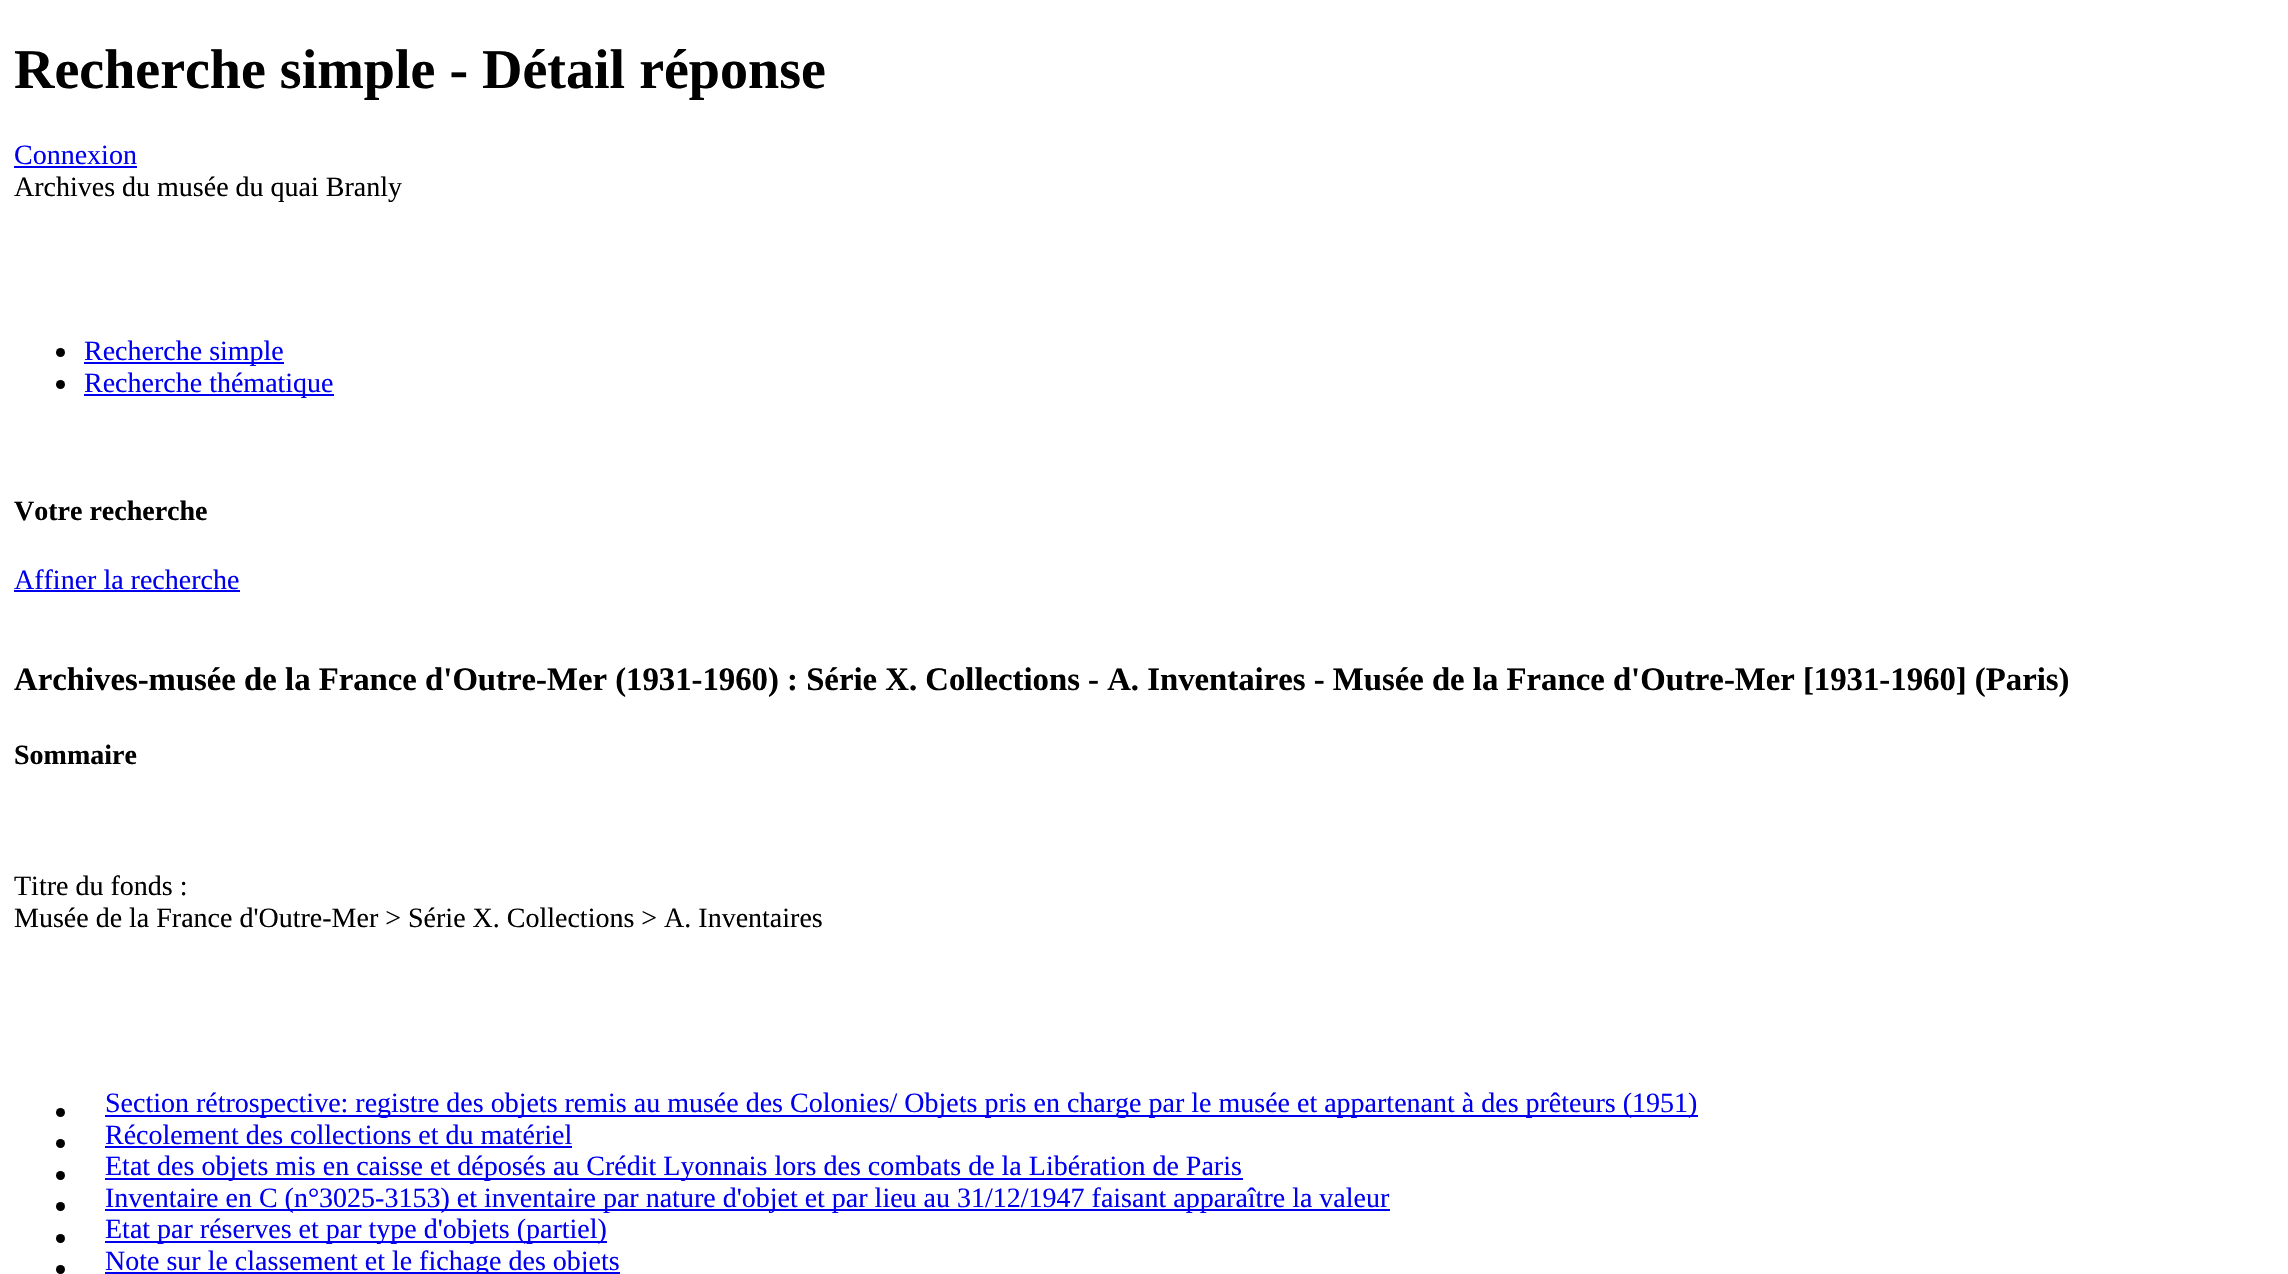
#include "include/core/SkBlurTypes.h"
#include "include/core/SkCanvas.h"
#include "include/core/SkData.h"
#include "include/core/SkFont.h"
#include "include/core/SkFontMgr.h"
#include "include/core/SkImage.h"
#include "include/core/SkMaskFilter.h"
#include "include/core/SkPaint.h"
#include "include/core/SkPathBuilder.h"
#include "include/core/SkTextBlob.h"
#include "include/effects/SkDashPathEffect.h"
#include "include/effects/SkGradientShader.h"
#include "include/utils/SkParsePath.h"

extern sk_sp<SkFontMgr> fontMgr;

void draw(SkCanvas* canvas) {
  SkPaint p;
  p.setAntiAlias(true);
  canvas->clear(SK_ColorWHITE);
  p.setColor(SkColorSetRGB(0, 0, 238));
  canvas->drawRect(SkRect::MakeLTRB(14, 166, 137, 168), p);
  p.setColor(SK_ColorBLACK);
  canvas->drawCircle(60.5f, 352.5f, 4.5f, p);
  p.setColor(SkColorSetRGB(0, 0, 238));
  canvas->drawRect(SkRect::MakeLTRB(84, 362, 284, 364), p);
  p.setColor(SK_ColorBLACK);
  canvas->drawCircle(60.5f, 384.5f, 4.5f, p);
  p.setColor(SkColorSetRGB(0, 0, 238));
  canvas->drawRect(SkRect::MakeLTRB(84, 394, 334, 396), p);
  canvas->drawRect(SkRect::MakeLTRB(14, 590, 240, 592), p);
  p.setColor(SK_ColorBLACK);
  canvas->drawCircle(60.5f, 1112.5f, 4.5f, p);
  p.setColor(SkColorSetRGB(0, 0, 238));
  canvas->drawRect(SkRect::MakeLTRB(105, 1115, 1698, 1117), p);
  p.setColor(SK_ColorBLACK);
  canvas->drawCircle(60.5f, 1143.5f, 4.5f, p);
  p.setColor(SkColorSetRGB(0, 0, 238));
  canvas->drawRect(SkRect::MakeLTRB(105, 1146, 572, 1148), p);
  p.setColor(SK_ColorBLACK);
  canvas->drawCircle(60.5f, 1175.5f, 4.5f, p);
  p.setColor(SkColorSetRGB(0, 0, 238));
  canvas->drawRect(SkRect::MakeLTRB(105, 1178, 1243, 1180), p);
  p.setColor(SK_ColorBLACK);
  canvas->drawCircle(60.5f, 1206.5f, 4.5f, p);
  p.setColor(SkColorSetRGB(0, 0, 238));
  canvas->drawRect(SkRect::MakeLTRB(105, 1209, 1390, 1211), p);
  p.setColor(SK_ColorBLACK);
  canvas->drawCircle(60.5f, 1238.5f, 4.5f, p);
  p.setColor(SkColorSetRGB(0, 0, 238));
  canvas->drawRect(SkRect::MakeLTRB(105, 1241, 607, 1243), p);
  p.setColor(SK_ColorBLACK);
  canvas->drawCircle(60.5f, 1269.5f, 4.5f, p);
  p.setColor(SkColorSetRGB(0, 0, 238));
  canvas->drawRect(SkRect::MakeLTRB(105, 1272, 620, 1274), p);
  SkFont font1(fontMgr->matchFamilyStyle("Liberation Serif", SkFontStyle::Bold()), 56);
  font1.setSubpixel(true);
  p.setColor(SK_ColorBLACK);
  canvas->drawString("Recherche simple - Détail réponse", 14, 88, font1, p);
  SkFont font2(fontMgr->matchFamilyStyle("Liberation Serif", SkFontStyle::Normal()), 28);
  font2.setSubpixel(true);
  p.setColor(SkColorSetRGB(0, 0, 238));
  canvas->drawString("Connexion", 14, 164, font2, p);
  p.setColor(SK_ColorBLACK);
  canvas->drawString("Archives du musée du quai Branly", 14, 196, font2, p);
  p.setColor(SkColorSetRGB(0, 0, 238));
  canvas->drawString("Recherche simple", 84, 360, font2, p);
  canvas->drawString("Recherche thématique", 84, 392, font2, p);
  SkFont font3(fontMgr->matchFamilyStyle("Liberation Serif", SkFontStyle::Bold()), 28);
  font3.setSubpixel(true);
  p.setColor(SK_ColorBLACK);
  canvas->drawString("Votre recherche", 14, 520, font3, p);
  p.setColor(SkColorSetRGB(0, 0, 238));
  canvas->drawString("Affiner la recherche", 14, 589, font2, p);
  SkFont font4(fontMgr->matchFamilyStyle("Liberation Serif", SkFontStyle::Bold()), 32.75f);
  font4.setSubpixel(true);
  p.setColor(SK_ColorBLACK);
  canvas->drawString("Archives-musée de la France d'Outre-Mer (1931-1960) : Série X. Collections - A. Inventaires - Musée de la France d'Outre-Mer [1931-1960] (Paris)", 14, 690, font4, p);
  canvas->drawString("Sommaire", 14, 764, font3, p);
  canvas->drawString("Titre du fonds :", 14, 895, font2, p);
  canvas->drawString("Musée de la France d'Outre-Mer > Série X. Collections > A. Inventaires", 14, 927, font2, p);
  p.setColor(SkColorSetRGB(0, 0, 238));
  canvas->drawString("Section rétrospective: registre des objets remis au musée des Colonies/ Objets pris en charge par le musée et appartenant à des prêteurs (1951)", 105, 1112, font2, p);
  canvas->drawString("Récolement des collections et du matériel", 105, 1144, font2, p);
  canvas->drawString("Etat des objets mis en caisse et déposés au Crédit Lyonnais lors des combats de la Libération de Paris", 105, 1175, font2, p);
  canvas->drawString("Inventaire en C (n°3025-3153) et inventaire par nature d'objet et par lieu au 31/12/1947 faisant apparaître la valeur", 105, 1207, font2, p);
  canvas->drawString("Etat par réserves et par type d'objets (partiel)", 105, 1238, font2, p);
  canvas->drawString("Note sur le classement et le fichage des objets", 105, 1270, font2, p);
}
